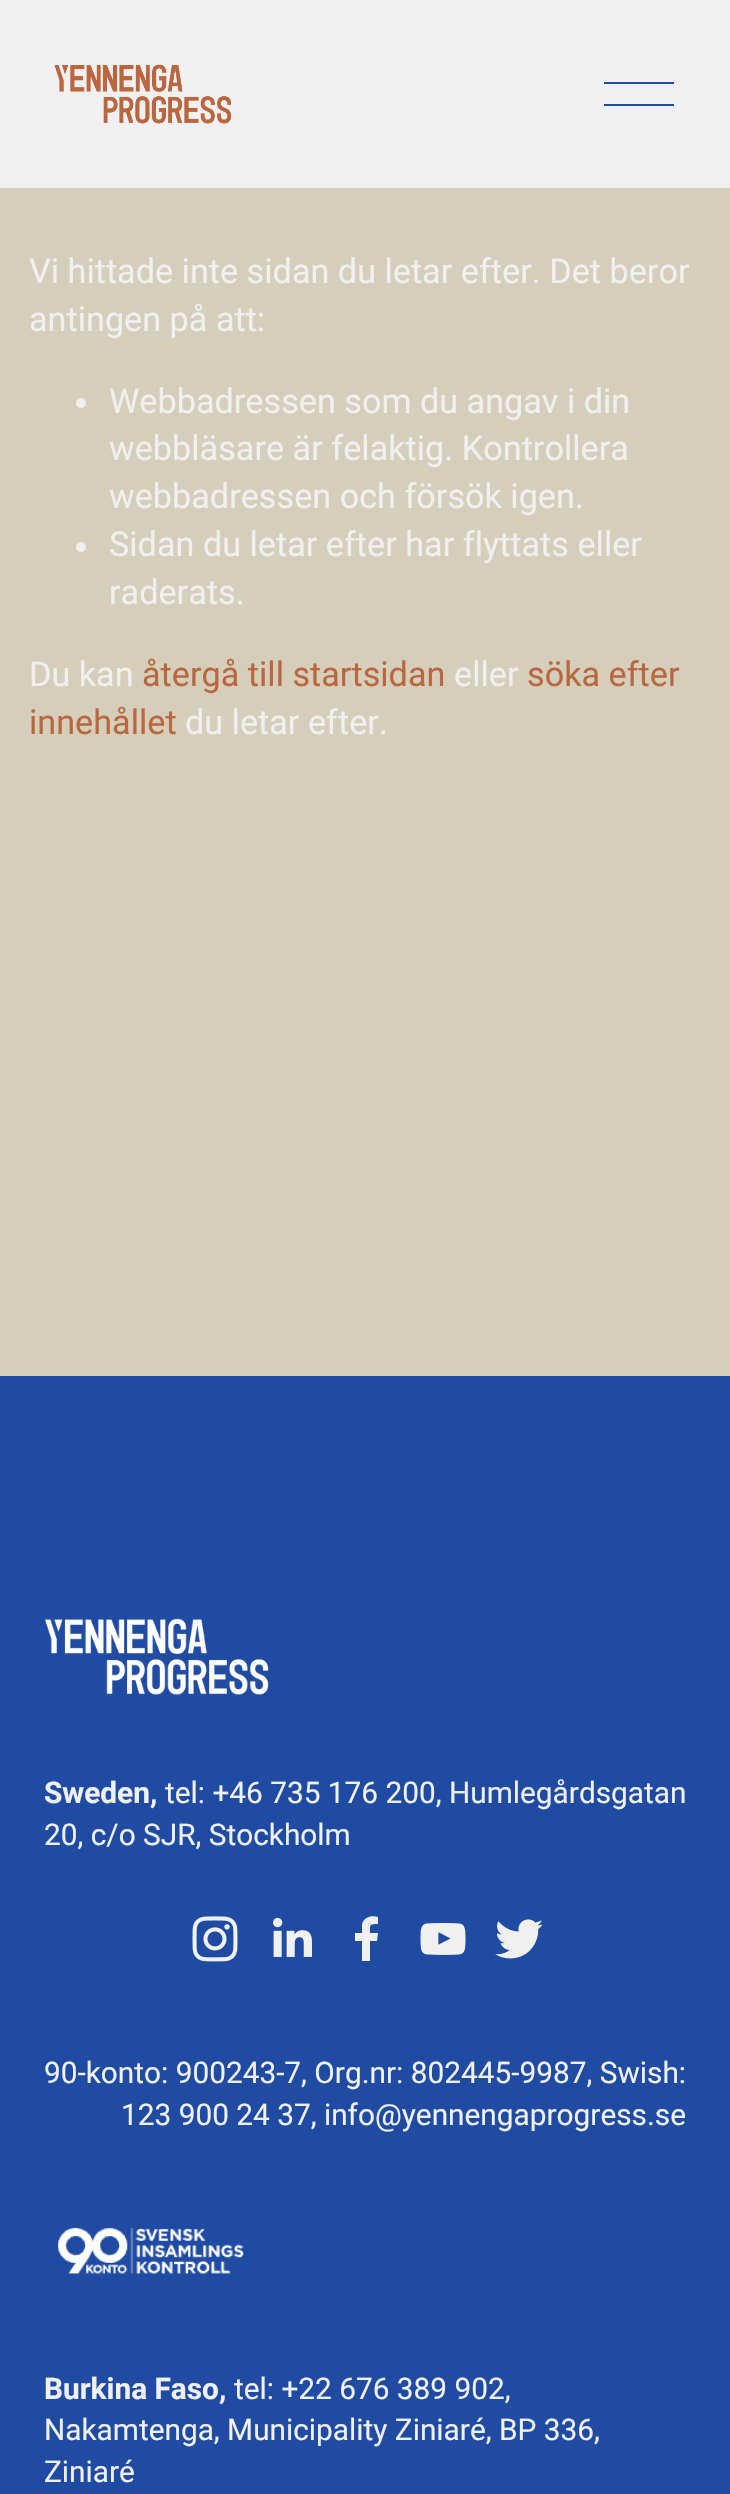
#include "include/core/SkBlurTypes.h"
#include "include/core/SkCanvas.h"
#include "include/core/SkData.h"
#include "include/core/SkFont.h"
#include "include/core/SkFontMgr.h"
#include "include/core/SkImage.h"
#include "include/core/SkMaskFilter.h"
#include "include/core/SkPaint.h"
#include "include/core/SkPathBuilder.h"
#include "include/core/SkTextBlob.h"
#include "include/effects/SkDashPathEffect.h"
#include "include/effects/SkGradientShader.h"
#include "include/utils/SkParsePath.h"

extern sk_sp<SkFontMgr> fontMgr;

void draw(SkCanvas* canvas) {
  SkPaint p;
  p.setAntiAlias(true);
  canvas->clear(SkColorSetRGB(213, 206, 186));
  p.setColor(SkColorSetRGB(240, 240, 240));
  canvas->drawRect(SkRect::MakeLTRB(0, 0, 730, 188), p);
  canvas->drawImageRect(SkImages::DeferredFromEncodedData(SkData::MakeFromFileName("images/1.png")), SkRect::MakeLTRB(54, 64, 231, 124), SkSamplingOptions());
  p.setColor(SkColorSetRGB(31, 75, 162));
  canvas->drawRect(SkRect::MakeLTRB(604, 82, 674, 84), p);
  canvas->drawRect(SkRect::MakeLTRB(604, 104, 674, 106), p);
  p.setColor(SkColorSetRGB(240, 240, 240));
  canvas->drawCircle(81, 403, 5, p);
  canvas->drawCircle(81, 547, 5, p);
  p.setColor(SkColorSetRGB(31, 75, 162));
  canvas->drawRect(SkRect::MakeLTRB(0, 1376, 730, 2494), p);
  canvas->drawImageRect(SkImages::DeferredFromEncodedData(SkData::MakeFromFileName("images/2.png")), SkRect::MakeLTRB(44, 1618, 269, 1695), SkSamplingOptions());
  canvas->drawImageRect(SkImages::DeferredFromEncodedData(SkData::MakeFromFileName("images/3.png")), SkRect::MakeLTRB(192, 1916, 238, 1962), SkSamplingOptions());
  canvas->drawImageRect(SkImages::DeferredFromEncodedData(SkData::MakeFromFileName("images/4.png")), SkRect::MakeLTRB(273, 1917, 312, 1957), SkSamplingOptions());
  p.setColor(SkColorSetRGB(240, 240, 240));
  canvas->drawPath(SkPathBuilder().moveTo(370, 1961).lineTo(370, 1941).lineTo(377, 1941).lineTo(378, 1933).lineTo(370, 1933).cubicTo(370, 1925, 369, 1924, 378, 1924).lineTo(378, 1917).cubicTo(372, 1915, 363, 1917, 362, 1925).lineTo(362, 1933).lineTo(355, 1933).lineTo(355, 1941).lineTo(362, 1941).lineTo(362, 1961).close().detach(), p);
  canvas->drawImageRect(SkImages::DeferredFromEncodedData(SkData::MakeFromFileName("images/5.png")), SkRect::MakeLTRB(420, 1923, 466, 1955), SkSamplingOptions());
  canvas->drawImageRect(SkImages::DeferredFromEncodedData(SkData::MakeFromFileName("images/6.png")), SkRect::MakeLTRB(495, 1919, 542, 1959), SkSamplingOptions());
  canvas->drawImageRect(SkImages::DeferredFromEncodedData(SkData::MakeFromFileName("images/7.png")), SkRect::MakeLTRB(58, 2227, 244, 2274), SkSamplingOptions());
  SkFont font1(fontMgr->matchFamilyStyle("Roboto", SkFontStyle::Normal()), 34.2f);
  font1.setSubpixel(true);
  canvas->drawString("Vi hittade inte sidan du letar efter. Det beror", 29, 283, font1, p);
  canvas->drawString("antingen på att:", 29, 331, font1, p);
  canvas->drawString("Webbadressen som du angav i din", 109, 413, font1, p);
  canvas->drawString("webbläsare är felaktig. Kontrollera", 109, 460, font1, p);
  canvas->drawString("webbadressen och försök igen.", 109, 508, font1, p);
  canvas->drawString("Sidan du letar efter har flyttats eller", 109, 556, font1, p);
  canvas->drawString("raderats.", 109, 604, font1, p);
  canvas->drawString("Du kan", 29, 686, font1, p);
  p.setColor(SkColorSetRGB(186, 103, 64));
  canvas->drawString("återgå till startsidan", 142, 686, font1, p);
  p.setColor(SkColorSetRGB(240, 240, 240));
  canvas->drawString("eller", 454, 686, font1, p);
  p.setColor(SkColorSetRGB(186, 103, 64));
  canvas->drawString("söka efter", 527, 686, font1, p);
  canvas->drawString("innehållet", 29, 734, font1, p);
  p.setColor(SkColorSetRGB(240, 240, 240));
  canvas->drawString("du letar efter.", 185, 734, font1, p);
  SkFont font2(fontMgr->matchFamilyStyle("Roboto", SkFontStyle::Bold()), 29.8f);
  font2.setSubpixel(true);
  canvas->drawString("Sweden,", 44, 1803, font2, p);
  SkFont font3(fontMgr->matchFamilyStyle("Roboto", SkFontStyle::Normal()), 29.8f);
  font3.setSubpixel(true);
  canvas->drawString("tel: +46 735 176 200, Humlegårdsgatan", 165, 1803, font3, p);
  canvas->drawString("20, c/o SJR, Stockholm", 44, 1845, font3, p);
  canvas->drawString("90-konto: 900243-7, Org.nr: 802445-9987, Swish:", 44, 2083, font3, p);
  canvas->drawString("123 900 24 37, info@yennengaprogress.se", 121, 2125, font3, p);
  canvas->drawString("Burkina Faso,", 44, 2399, font2, p);
  canvas->drawString("tel: +22 676 389 902,", 234, 2399, font3, p);
  canvas->drawString("Nakamtenga, Municipality Ziniaré, BP 336,", 44, 2440, font3, p);
  canvas->drawString("Ziniaré", 44, 2482, font3, p);
}
